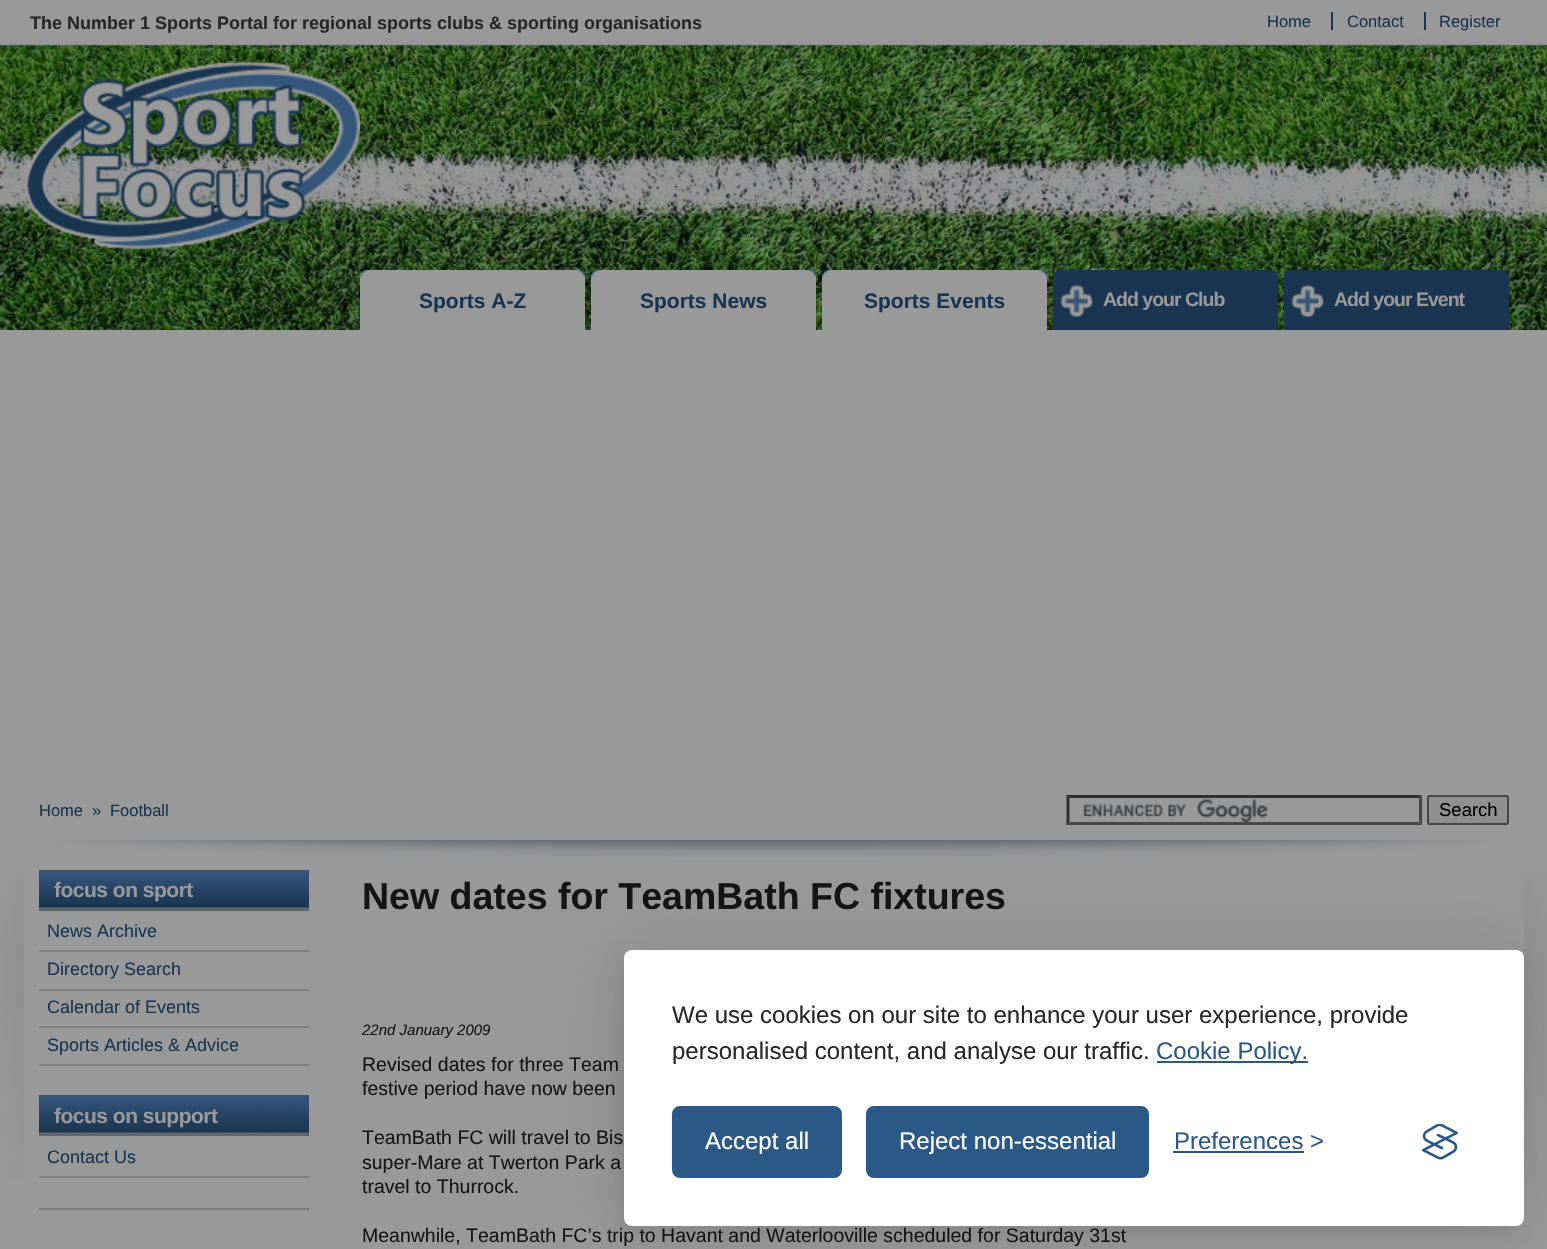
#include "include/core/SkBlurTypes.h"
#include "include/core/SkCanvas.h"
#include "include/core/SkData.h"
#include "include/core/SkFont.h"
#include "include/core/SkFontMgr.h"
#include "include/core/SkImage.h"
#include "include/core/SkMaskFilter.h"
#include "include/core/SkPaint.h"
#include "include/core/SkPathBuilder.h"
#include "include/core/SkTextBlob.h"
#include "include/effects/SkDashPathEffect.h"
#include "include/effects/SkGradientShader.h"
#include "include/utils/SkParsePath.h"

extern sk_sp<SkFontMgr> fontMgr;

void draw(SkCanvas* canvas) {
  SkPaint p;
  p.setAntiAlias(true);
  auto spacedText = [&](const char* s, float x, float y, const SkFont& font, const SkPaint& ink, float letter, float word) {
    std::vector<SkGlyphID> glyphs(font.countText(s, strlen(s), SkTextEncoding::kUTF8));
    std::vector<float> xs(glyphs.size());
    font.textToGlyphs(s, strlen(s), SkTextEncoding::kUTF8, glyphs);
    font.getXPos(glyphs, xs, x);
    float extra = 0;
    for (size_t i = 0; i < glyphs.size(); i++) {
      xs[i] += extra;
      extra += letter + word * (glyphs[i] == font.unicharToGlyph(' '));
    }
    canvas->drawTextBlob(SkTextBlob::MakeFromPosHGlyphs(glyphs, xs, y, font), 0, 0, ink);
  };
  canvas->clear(SkColorSetRGB(153, 153, 153));
  canvas->drawImageRect(SkImages::DeferredFromEncodedData(SkData::MakeFromFileName("images/1.png")), SkRect::MakeLTRB(0, 36, 1547, 330), SkSamplingOptions());
  p.setColor(SkColorSetRGB(25, 53, 81));
  canvas->drawRect(SkRect::MakeLTRB(1331, 12, 1333, 30), p);
  canvas->drawRect(SkRect::MakeLTRB(1424, 12, 1426, 30), p);
  canvas->drawImageRect(SkImages::DeferredFromEncodedData(SkData::MakeFromFileName("images/2.png")), SkRect::MakeLTRB(24, 61, 360, 250), SkSamplingOptions());
  canvas->drawImageRect(SkImages::DeferredFromEncodedData(SkData::MakeFromFileName("images/3.png")), SkRect::MakeLTRB(360, 270, 585, 330), SkSamplingOptions());
  canvas->drawImageRect(SkImages::DeferredFromEncodedData(SkData::MakeFromFileName("images/4.png")), SkRect::MakeLTRB(591, 270, 816, 330), SkSamplingOptions());
  canvas->drawImageRect(SkImages::DeferredFromEncodedData(SkData::MakeFromFileName("images/5.png")), SkRect::MakeLTRB(822, 270, 1047, 330), SkSamplingOptions());
  canvas->drawImageRect(SkImages::DeferredFromEncodedData(SkData::MakeFromFileName("images/6.png")), SkRect::MakeLTRB(1053, 270, 1278, 330), SkSamplingOptions());
  canvas->drawImageRect(SkImages::DeferredFromEncodedData(SkData::MakeFromFileName("images/7.png")), SkRect::MakeLTRB(1284, 270, 1509, 330), SkSamplingOptions());
  canvas->drawImageRect(SkImages::DeferredFromEncodedData(SkData::MakeFromFileName("images/8.png")), SkRect::MakeLTRB(0, 872, 1547, 1181), SkSamplingOptions());
  canvas->drawImageRect(SkImages::DeferredFromEncodedData(SkData::MakeFromFileName("images/9.png")), SkRect::MakeLTRB(59, 840, 1489, 857), SkSamplingOptions());
  canvas->drawImageRect(SkImages::DeferredFromEncodedData(SkData::MakeFromFileName("images/10.png")), SkRect::MakeLTRB(1083, 799, 1268, 822), SkSamplingOptions());
  p.setColor(SkColorSetRGB(47, 47, 47));
  canvas->drawPath(SkPathBuilder().moveTo(1066, 795).lineTo(1422, 795).lineTo(1419, 798).lineTo(1070, 798).close().detach(), p);
  p.setColor(SkColorSetRGB(71, 71, 71));
  canvas->drawPath(SkPathBuilder().moveTo(1422, 795).lineTo(1422, 825).lineTo(1419, 822).lineTo(1419, 798).close().detach(), p);
  canvas->drawPath(SkPathBuilder().moveTo(1422, 825).lineTo(1066, 825).lineTo(1070, 822).lineTo(1419, 822).close().detach(), p);
  p.setColor(SkColorSetRGB(47, 47, 47));
  canvas->drawPath(SkPathBuilder().moveTo(1066.5f, 825).lineTo(1066.5f, 795).lineTo(1069.5f, 798).lineTo(1069.5f, 822).close().detach(), p);
  p.setColor(SkColorSetRGB(143, 143, 143));
  canvas->drawRoundRect(SkRect::MakeLTRB(1428, 796, 1508, 824), 2, 2, p);
  p.setStyle(SkPaint::kStroke_Style);
  p.setStrokeWidth(2);
  p.setColor(SkColorSetRGB(71, 71, 71));
  canvas->drawRoundRect(SkRect::MakeLTRB(1428, 796, 1508, 824), 2, 2, p);
  p.setStyle(SkPaint::kFill_Style);
  p.setColor(SkColorSetRGB(97, 101, 109));
  canvas->drawRect(SkRect::MakeLTRB(39, 907, 309, 911), p);
  canvas->drawImageRect(SkImages::DeferredFromEncodedData(SkData::MakeFromFileName("images/11.png")), SkRect::MakeLTRB(39, 870, 309, 908), SkSamplingOptions());
  p.setColor(SkColorSetRGB(128, 128, 128));
  canvas->drawRect(SkRect::MakeLTRB(39, 950, 309, 952), p);
  canvas->drawRect(SkRect::MakeLTRB(39, 989, 309, 991), p);
  canvas->drawRect(SkRect::MakeLTRB(39, 1026, 309, 1028), p);
  canvas->drawRect(SkRect::MakeLTRB(39, 1064, 309, 1066), p);
  p.setColor(SkColorSetRGB(97, 101, 109));
  canvas->drawRect(SkRect::MakeLTRB(39, 1132, 309, 1136), p);
  canvas->drawImageRect(SkImages::DeferredFromEncodedData(SkData::MakeFromFileName("images/12.png")), SkRect::MakeLTRB(39, 1095, 309, 1133), SkSamplingOptions());
  p.setColor(SkColorSetRGB(128, 128, 128));
  canvas->drawRect(SkRect::MakeLTRB(39, 1176, 309, 1178), p);
  p.setColor(SkColorSetRGB(122, 122, 122));
  canvas->drawRect(SkRect::MakeLTRB(39, 1208, 309, 1210), p);
  p.setColor(SkColorSetARGB(26, 0, 0, 0));
  p.setMaskFilter(SkMaskFilter::MakeBlur(kNormal_SkBlurStyle, 37.5f));
  canvas->drawRoundRect(SkRect::MakeLTRB(624, 950, 1524, 1226), 8, 8, p);
  p.setMaskFilter(nullptr);
  p.setColor(SkColorSetARGB(18, 0, 0, 0));
  p.setMaskFilter(SkMaskFilter::MakeBlur(kNormal_SkBlurStyle, 7.5f));
  canvas->drawRoundRect(SkRect::MakeLTRB(617, 957, 1517, 1233), 8, 8, p);
  p.setMaskFilter(nullptr);
  p.setColor(SK_ColorWHITE);
  canvas->drawRoundRect(SkRect::MakeLTRB(624, 950, 1524, 1226), 8, 8, p);
  p.setColor(SkColorSetRGB(42, 89, 135));
  canvas->drawRect(SkRect::MakeLTRB(1157, 1061, 1308, 1063), p);
  canvas->drawRoundRect(SkRect::MakeLTRB(673.5f, 1107.5f, 840.5f, 1176.5f), 6.5f, 6.5f, p);
  p.setStyle(SkPaint::kStroke_Style);
  p.setStrokeWidth(3);
  canvas->drawRoundRect(SkRect::MakeLTRB(673.5f, 1107.5f, 840.5f, 1176.5f), 6.5f, 6.5f, p);
  p.setStyle(SkPaint::kFill_Style);
  canvas->drawRoundRect(SkRect::MakeLTRB(867.5f, 1107.5f, 1147.5f, 1176.5f), 6.5f, 6.5f, p);
  p.setStyle(SkPaint::kStroke_Style);
  canvas->drawRoundRect(SkRect::MakeLTRB(867.5f, 1107.5f, 1147.5f, 1176.5f), 6.5f, 6.5f, p);
  p.setStyle(SkPaint::kFill_Style);
  canvas->drawRect(SkRect::MakeLTRB(1173, 1151, 1304, 1153), p);
  canvas->drawImageRect(SkImages::DeferredFromEncodedData(SkData::MakeFromFileName("images/13.png")), SkRect::MakeLTRB(1422, 1124, 1458, 1160), SkSamplingOptions());
  SkFont font1(fontMgr->matchFamilyStyle("Liberation Sans", SkFontStyle::Bold()), 18);
  font1.setSubpixel(true);
  p.setColor(SkColorSetRGB(40, 40, 40));
  canvas->drawString("The Number 1 Sports Portal for regional sports clubs & sporting organisations", 30, 29, font1, p);
  SkFont font2(fontMgr->matchFamilyStyle("Liberation Sans", SkFontStyle::Normal()), 16.5f);
  font2.setSubpixel(true);
  p.setColor(SkColorSetRGB(25, 53, 81));
  canvas->drawString("Home", 1267, 27, font2, p);
  canvas->drawString("Contact", 1347, 27, font2, p);
  canvas->drawString("Register", 1439, 27, font2, p);
  SkFont font3(fontMgr->matchFamilyStyle("Liberation Sans", SkFontStyle::Bold()), 21);
  font3.setSubpixel(true);
  canvas->drawString("Sports A-Z", 419, 308, font3, p);
  canvas->drawString("Sports News", 640, 308, font3, p);
  canvas->drawString("Sports Events", 864, 308, font3, p);
  SkFont font4(fontMgr->matchFamilyStyle("Liberation Sans", SkFontStyle::Bold()), 19.5f);
  font4.setSubpixel(true);
  p.setColor(SkColorSetRGB(153, 153, 153));
  spacedText("Add your Club", 1103, 306, font4, p, -1, 0);
  spacedText("Add your Event", 1334, 306, font4, p, -1, 0);
  p.setColor(SkColorSetRGB(25, 53, 81));
  canvas->drawString("Home", 39, 816, font2, p);
  canvas->drawString("»", 92, 816, font2, p);
  canvas->drawString("Football", 110, 816, font2, p);
  SkFont font5(fontMgr->matchFamilyStyle("Liberation Sans", SkFontStyle::Normal()), 18.5f);
  font5.setSubpixel(true);
  p.setColor(SK_ColorBLACK);
  canvas->drawString("Search", 1439, 816, font5, p);
  p.setColor(SkColorSetRGB(153, 153, 153));
  spacedText("focus on sport", 54, 897, font3, p, -0.5f, 0);
  SkFont font6(fontMgr->matchFamilyStyle("Liberation Sans", SkFontStyle::Normal()), 18);
  font6.setSubpixel(true);
  p.setColor(SkColorSetRGB(25, 53, 81));
  canvas->drawString("News Archive", 47, 937, font6, p);
  canvas->drawString("Directory Search", 47, 975, font6, p);
  canvas->drawString("Calendar of Events", 47, 1013, font6, p);
  canvas->drawString("Sports Articles & Advice", 47, 1051, font6, p);
  p.setColor(SkColorSetRGB(153, 153, 153));
  spacedText("focus on support", 54, 1123, font3, p, -0.5f, 0);
  p.setColor(SkColorSetRGB(25, 53, 81));
  canvas->drawString("Contact Us", 47, 1163, font6, p);
  SkFont font7(fontMgr->matchFamilyStyle("Liberation Sans", SkFontStyle::Bold()), 37.5f);
  font7.setSubpixel(true);
  p.setColor(SkColorSetRGB(21, 21, 21));
  canvas->drawString("New dates for TeamBath FC fixtures", 362, 909, font7, p);
  SkFont font8(fontMgr->matchFamilyStyle("Liberation Sans", SkFontStyle::Italic()), 15);
  font8.setSubpixel(true);
  canvas->drawString("22nd January 2009", 362, 1035, font8, p);
  SkFont font9(fontMgr->matchFamilyStyle("Liberation Sans", SkFontStyle::Normal()), 19.5f);
  font9.setSubpixel(true);
  canvas->drawString("Revised dates for three Team", 362, 1071, font9, p);
  canvas->drawString("festive period have now been", 362, 1095, font9, p);
  canvas->drawString("TeamBath FC will travel to Bis", 362, 1144, font9, p);
  canvas->drawString("super-Mare at Twerton Park a", 362, 1169, font9, p);
  canvas->drawString("travel to Thurrock.", 362, 1193, font9, p);
  canvas->drawString("Meanwhile, TeamBath FC’s trip to Havant and Waterlooville scheduled for Saturday 31st", 362, 1242, font9, p);
  SkFont font10(fontMgr->matchFamilyStyle("Liberation Sans", SkFontStyle::Normal()), 24);
  font10.setSubpixel(true);
  p.setColor(SkColorSetRGB(40, 40, 40));
  canvas->drawString("We use cookies on our site to enhance your user experience, provide", 672, 1023, font10, p);
  canvas->drawString("personalised content, and analyse our traffic.", 672, 1059, font10, p);
  p.setColor(SkColorSetRGB(42, 89, 135));
  canvas->drawString("Cookie Policy.", 1156, 1059, font10, p);
  p.setColor(SK_ColorWHITE);
  canvas->drawString("Accept all", 705, 1149, font10, p);
  canvas->drawString("Reject non-essential", 899, 1149, font10, p);
  p.setColor(SkColorSetRGB(42, 89, 135));
  canvas->drawString("Preferences", 1174, 1149, font10, p);
  canvas->drawString(">", 1310, 1149, font10, p);
}
